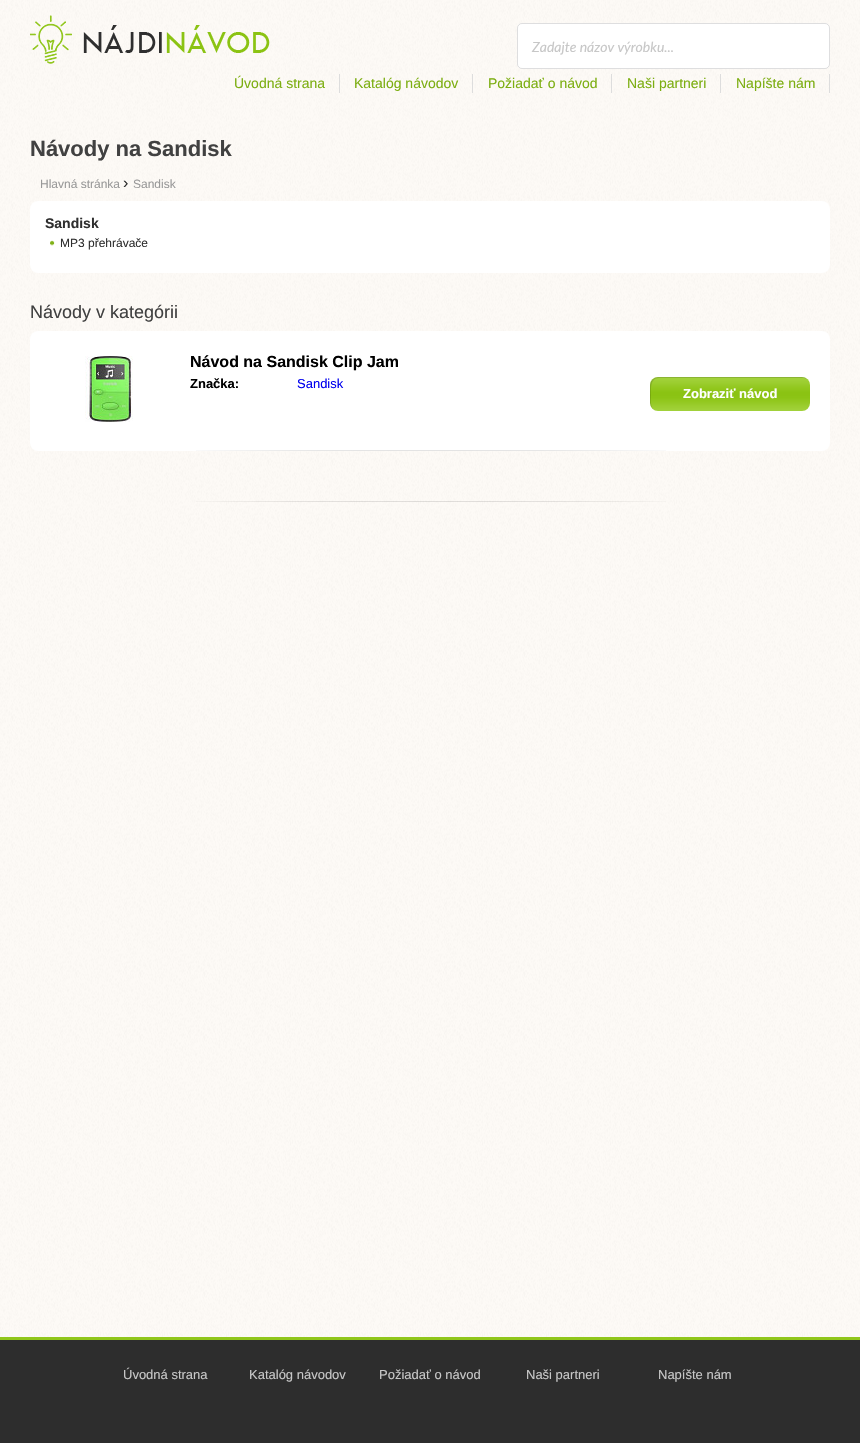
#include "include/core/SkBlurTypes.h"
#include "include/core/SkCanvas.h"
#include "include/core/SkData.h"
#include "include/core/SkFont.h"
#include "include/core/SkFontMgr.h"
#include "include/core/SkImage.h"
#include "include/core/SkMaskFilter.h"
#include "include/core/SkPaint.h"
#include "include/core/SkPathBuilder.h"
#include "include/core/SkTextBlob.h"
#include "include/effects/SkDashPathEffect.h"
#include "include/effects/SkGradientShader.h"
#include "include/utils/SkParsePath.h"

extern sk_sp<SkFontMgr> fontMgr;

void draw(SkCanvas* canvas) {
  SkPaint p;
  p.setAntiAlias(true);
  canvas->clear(SK_ColorWHITE);
  canvas->drawImageRect(SkImages::DeferredFromEncodedData(SkData::MakeFromFileName("images/1.png")), SkRect::MakeLTRB(0, 0, 860, 1337), SkSamplingOptions());
  canvas->drawImageRect(SkImages::DeferredFromEncodedData(SkData::MakeFromFileName("images/2.png")), SkRect::MakeLTRB(30, 15, 270, 64), SkSamplingOptions());
  p.setColor(SK_ColorWHITE);
  canvas->drawRoundRect(SkRect::MakeLTRB(517, 23, 830, 69), 5, 5, p);
  p.setStyle(SkPaint::kStroke_Style);
  p.setStrokeWidth(1);
  p.setColor(SkColorSetARGB(38, 34, 36, 38));
  canvas->drawRoundRect(SkRect::MakeLTRB(517.5f, 23.5f, 829.5f, 68.5f), 4.5f, 4.5f, p);
  p.setStyle(SkPaint::kFill_Style);
  p.setColor(SkColorSetRGB(221, 221, 221));
  canvas->drawRect(SkRect::MakeLTRB(339, 74, 340, 93), p);
  canvas->drawRect(SkRect::MakeLTRB(472, 74, 473, 93), p);
  canvas->drawRect(SkRect::MakeLTRB(611, 74, 612, 93), p);
  canvas->drawRect(SkRect::MakeLTRB(720, 74, 721, 93), p);
  canvas->drawRect(SkRect::MakeLTRB(829, 74, 830, 93), p);
  p.setColor(SK_ColorWHITE);
  canvas->drawRoundRect(SkRect::MakeLTRB(30, 201, 830, 273), 8, 8, p);
  canvas->drawImageRect(SkImages::DeferredFromEncodedData(SkData::MakeFromFileName("images/3.png")), SkRect::MakeLTRB(50, 240, 55, 246), SkSamplingOptions());
  canvas->drawRoundRect(SkRect::MakeLTRB(30, 331, 830, 451), 8, 8, p);
  canvas->drawImageRect(SkImages::DeferredFromEncodedData(SkData::MakeFromFileName("images/4.png")), SkRect::MakeLTRB(196, 450, 666, 451), SkSamplingOptions());
  canvas->drawImageRect(SkImages::DeferredFromEncodedData(SkData::MakeFromFileName("images/5.png")), SkRect::MakeLTRB(85, 356, 133, 422), SkSamplingOptions());
  canvas->drawImageRect(SkImages::DeferredFromEncodedData(SkData::MakeFromFileName("images/6.png")), SkRect::MakeLTRB(650, 377, 810, 411), SkSamplingOptions());
  p.setColor(SkColorSetARGB(36, 0, 0, 0));
  canvas->drawPath(SkPathBuilder().moveTo(659, 378).lineTo(803, 378).cubicTo(805, 378, 807, 379, 809, 381).cubicTo(807, 379, 805, 377, 802, 377).lineTo(658, 377).cubicTo(654, 377, 650, 381, 650, 385).lineTo(650, 403).cubicTo(650, 406, 652, 408, 654, 410).cubicTo(650, 406, 651, 400, 651, 395).cubicTo(651, 389, 650, 378, 659, 378).close().detach(), p);
  canvas->drawImageRect(SkImages::DeferredFromEncodedData(SkData::MakeFromFileName("images/7.png")), SkRect::MakeLTRB(196, 501, 666, 502), SkSamplingOptions());
  p.setColor(SkColorSetRGB(45, 45, 45));
  canvas->drawRect(SkRect::MakeLTRB(0, 1340, 860, 1443), p);
  p.setColor(SkColorSetRGB(144, 198, 27));
  canvas->drawRect(SkRect::MakeLTRB(0, 1337, 860, 1340), p);
  SkFont font1(fontMgr->matchFamilyStyle("Lato", SkFontStyle::Italic()), 14);
  font1.setSubpixel(true);
  p.setColor(SkColorSetRGB(199, 199, 199));
  canvas->drawString("Zadajte názov výrobku...", 532, 52, font1, p);
  SkFont font2(fontMgr->matchFamilyStyle("Liberation Sans", SkFontStyle::Normal()), 14);
  font2.setSubpixel(true);
  p.setColor(SkColorSetRGB(124, 174, 17));
  canvas->drawString("Úvodná strana", 234, 88, font2, p);
  canvas->drawString("Katalóg návodov", 354, 88, font2, p);
  canvas->drawString("Požiadať o návod", 488, 88, font2, p);
  canvas->drawString("Naši partneri", 627, 88, font2, p);
  canvas->drawString("Napíšte nám", 736, 88, font2, p);
  SkFont font3(fontMgr->matchFamilyStyle("Liberation Sans", SkFontStyle::Bold()), 22);
  font3.setSubpixel(true);
  p.setColor(SkColorSetRGB(65, 65, 65));
  canvas->drawString("Návody na Sandisk", 30, 156, font3, p);
  SkFont font4(fontMgr->matchFamilyStyle("Liberation Sans", SkFontStyle::Normal()), 12);
  font4.setSubpixel(true);
  p.setColor(SkColorSetRGB(153, 153, 153));
  canvas->drawString("Hlavná stránka", 40, 188, font4, p);
  SkFont font5(fontMgr->matchFamilyStyle("Liberation Sans", SkFontStyle::Normal()), 16);
  font5.setSubpixel(true);
  p.setColor(SkColorSetRGB(47, 47, 47));
  canvas->drawString("›", 123, 188, font5, p);
  p.setColor(SkColorSetRGB(153, 153, 153));
  canvas->drawString("Sandisk", 133, 188, font4, p);
  SkFont font6(fontMgr->matchFamilyStyle("Liberation Sans", SkFontStyle::Bold()), 14);
  font6.setSubpixel(true);
  p.setColor(SkColorSetRGB(47, 47, 47));
  canvas->drawString("Sandisk", 45, 228, font6, p);
  canvas->drawString("MP3 přehrávače", 60, 247, font4, p);
  SkFont font7(fontMgr->matchFamilyStyle("Liberation Sans", SkFontStyle::Normal()), 18);
  font7.setSubpixel(true);
  p.setColor(SkColorSetRGB(65, 65, 65));
  canvas->drawString("Návody v kategórii", 30, 318, font7, p);
  SkFont font8(fontMgr->matchFamilyStyle("Liberation Sans", SkFontStyle::Bold()), 16);
  font8.setSubpixel(true);
  p.setColor(SK_ColorBLACK);
  canvas->drawString("Návod na Sandisk Clip Jam", 190, 367, font8, p);
  SkFont font9(fontMgr->matchFamilyStyle("Liberation Sans", SkFontStyle::Bold()), 13);
  font9.setSubpixel(true);
  canvas->drawString("Značka:", 190, 388, font9, p);
  SkFont font10(fontMgr->matchFamilyStyle("Liberation Sans", SkFontStyle::Normal()), 13);
  font10.setSubpixel(true);
  p.setColor(SkColorSetRGB(0, 0, 238));
  canvas->drawString("Sandisk", 297, 388, font10, p);
  p.setColor(SK_ColorWHITE);
  canvas->drawString("Zobraziť návod", 683, 398, font9, p);
  p.setColor(SkColorSetRGB(199, 199, 199));
  canvas->drawString("Úvodná strana", 123, 1379, font10, p);
  canvas->drawString("Katalóg návodov", 249, 1379, font10, p);
  canvas->drawString("Požiadať o návod", 379, 1379, font10, p);
  canvas->drawString("Naši partneri", 526, 1379, font10, p);
  canvas->drawString("Napíšte nám", 658, 1379, font10, p);
}
